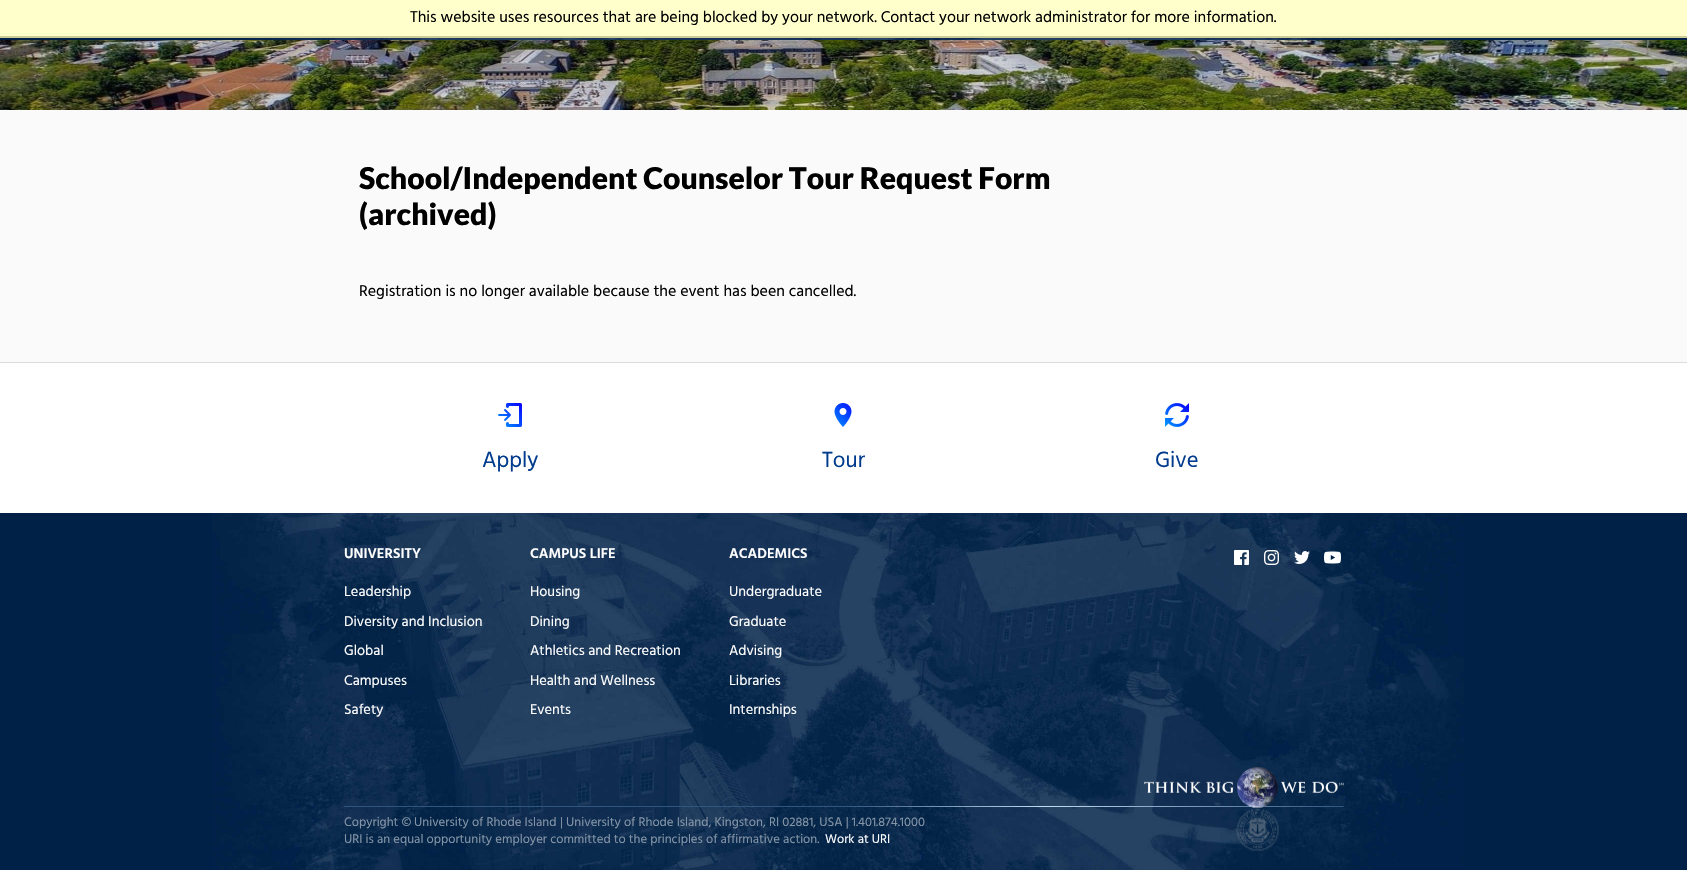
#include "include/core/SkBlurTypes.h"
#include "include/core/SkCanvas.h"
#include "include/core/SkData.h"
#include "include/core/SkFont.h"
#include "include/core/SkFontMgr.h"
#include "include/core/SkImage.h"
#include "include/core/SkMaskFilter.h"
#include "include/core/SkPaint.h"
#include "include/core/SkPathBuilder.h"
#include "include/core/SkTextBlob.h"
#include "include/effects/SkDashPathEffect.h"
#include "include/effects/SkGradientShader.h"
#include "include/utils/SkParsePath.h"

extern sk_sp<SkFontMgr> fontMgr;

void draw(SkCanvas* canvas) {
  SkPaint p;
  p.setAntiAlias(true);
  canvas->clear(SkColorSetRGB(250, 250, 250));
  p.setColor(SkColorSetRGB(255, 255, 204));
  canvas->drawRect(SkRect::MakeLTRB(0, 0, 1687, 36), p);
  p.setColor(SkColorSetRGB(204, 204, 153));
  canvas->drawRect(SkRect::MakeLTRB(0, 36, 1687, 38), p);
  p.setColor(SkColorSetRGB(0, 33, 71));
  canvas->drawRect(SkRect::MakeLTRB(0, 38, 1687, 40), p);
  canvas->drawImageRect(SkImages::DeferredFromEncodedData(SkData::MakeFromFileName("images/1.png")), SkRect::MakeLTRB(212, 38, 1448, 40), SkSamplingOptions());
  canvas->drawImageRect(SkImages::DeferredFromEncodedData(SkData::MakeFromFileName("images/2.png")), SkRect::MakeLTRB(0, 40, 1687, 110), SkSamplingOptions());
  p.setColor(SK_ColorWHITE);
  canvas->drawRect(SkRect::MakeLTRB(0, 363, 1687, 513), p);
  p.setColor(SkColorSetRGB(221, 221, 221));
  canvas->drawRect(SkRect::MakeLTRB(0, 362, 1687, 363), p);
  canvas->drawImageRect(SkImages::DeferredFromEncodedData(SkData::MakeFromFileName("images/3.png")), SkRect::MakeLTRB(498, 403, 522, 427), SkSamplingOptions());
  canvas->drawImageRect(SkImages::DeferredFromEncodedData(SkData::MakeFromFileName("images/4.png")), SkRect::MakeLTRB(834, 403, 852, 427), SkSamplingOptions());
  canvas->drawImageRect(SkImages::DeferredFromEncodedData(SkData::MakeFromFileName("images/5.png")), SkRect::MakeLTRB(1165, 403, 1189, 427), SkSamplingOptions());
  p.setColor(SkColorSetRGB(0, 33, 71));
  canvas->drawRect(SkRect::MakeLTRB(0, 513, 1687, 870), p);
  canvas->drawImageRect(SkImages::DeferredFromEncodedData(SkData::MakeFromFileName("images/6.png")), SkRect::MakeLTRB(212, 513, 1464, 870), SkSamplingOptions());
  canvas->drawImageRect(SkImages::DeferredFromEncodedData(SkData::MakeFromFileName("images/7.png")), SkRect::MakeLTRB(1234, 550, 1249, 565), SkSamplingOptions());
  canvas->drawImageRect(SkImages::DeferredFromEncodedData(SkData::MakeFromFileName("images/8.png")), SkRect::MakeLTRB(1264, 550, 1279, 565), SkSamplingOptions());
  canvas->drawImageRect(SkImages::DeferredFromEncodedData(SkData::MakeFromFileName("images/9.png")), SkRect::MakeLTRB(1294, 551, 1310, 564), SkSamplingOptions());
  canvas->drawImageRect(SkImages::DeferredFromEncodedData(SkData::MakeFromFileName("images/10.png")), SkRect::MakeLTRB(1324, 551, 1341, 564), SkSamplingOptions());
  {
    const SkColor colors[] = {SkColorSetRGB(48, 85, 126), SkColorSetRGB(192, 221, 242), SkColorSetRGB(48, 85, 126)};
    const float stops[] = {0.5f, 0.7f, 1};
    const SkPoint ends[] = {{344, 807}, {1344, 807}};
    p.setShader(SkGradientShader::MakeLinear(ends, colors, stops, 3, SkTileMode::kClamp));
    p.setAlpha(255);
  }
  canvas->drawRect(SkRect::MakeLTRB(344, 806, 1344, 807), p);
  canvas->drawImageRect(SkImages::DeferredFromEncodedData(SkData::MakeFromFileName("images/11.png")), SkRect::MakeLTRB(1144, 767, 1344, 851), SkSamplingOptions());
  SkFont font1(fontMgr->matchFamilyStyle("Hind", SkFontStyle::Normal()), 16);
  font1.setSubpixel(true);
  p.setShader(nullptr);
  p.setColor(SK_ColorBLACK);
  canvas->drawString("This website uses resources that are being blocked by your network. Contact your network administrator for more information.", 410, 22, font1, p);
  SkFont font2(fontMgr->matchFamilyStyle("Lato", SkFontStyle(900, SkFontStyle::kNormal_Width, SkFontStyle::kUpright_Slant)), 30);
  font2.setSubpixel(true);
  canvas->drawString("School/Independent Counselor Tour Request Form", 359, 189, font2, p);
  canvas->drawString("(archived)", 359, 225, font2, p);
  canvas->drawString("Registration is no longer available because the event has been cancelled.", 359, 296, font1, p);
  SkFont font3(fontMgr->matchFamilyStyle("Hind", SkFontStyle::Normal()), 22.5f);
  font3.setSubpixel(true);
  p.setColor(SkColorSetRGB(0, 59, 141));
  canvas->drawString("Apply", 482, 467, font3, p);
  canvas->drawString("Tour", 822, 467, font3, p);
  canvas->drawString("Give", 1155, 467, font3, p);
  SkFont font4(fontMgr->matchFamilyStyle("Hind", SkFontStyle(600, SkFontStyle::kNormal_Width, SkFontStyle::kUpright_Slant)), 14.4f);
  font4.setSubpixel(true);
  p.setColor(SK_ColorWHITE);
  canvas->drawString("UNIVERSITY", 344, 558, font4, p);
  SkFont font5(fontMgr->matchFamilyStyle("Hind", SkFontStyle::Normal()), 14.4f);
  font5.setSubpixel(true);
  canvas->drawString("Leadership", 344, 596, font5, p);
  canvas->drawString("Diversity and Inclusion", 344, 626, font5, p);
  canvas->drawString("Global", 344, 655, font5, p);
  canvas->drawString("Campuses", 344, 685, font5, p);
  canvas->drawString("Safety", 344, 714, font5, p);
  canvas->drawString("CAMPUS LIFE", 530, 558, font4, p);
  canvas->drawString("Housing", 530, 596, font5, p);
  canvas->drawString("Dining", 530, 626, font5, p);
  canvas->drawString("Athletics and Recreation", 530, 655, font5, p);
  canvas->drawString("Health and Wellness", 530, 685, font5, p);
  canvas->drawString("Events", 530, 714, font5, p);
  canvas->drawString("ACADEMICS", 729, 558, font4, p);
  canvas->drawString("Undergraduate", 729, 596, font5, p);
  canvas->drawString("Graduate", 729, 626, font5, p);
  canvas->drawString("Advising", 729, 655, font5, p);
  canvas->drawString("Libraries", 729, 685, font5, p);
  canvas->drawString("Internships", 729, 714, font5, p);
  SkFont font6(fontMgr->matchFamilyStyle("Hind", SkFontStyle::Normal()), 12.8f);
  font6.setSubpixel(true);
  p.setColor(SkColorSetRGB(133, 149, 167));
  canvas->drawString("Copyright ©", 344, 826, font6, p);
  canvas->drawString("University of Rhode Island", 414, 826, font6, p);
  canvas->drawString("| University of Rhode Island, Kingston, RI 02881, USA | 1.401.874.1000", 560, 826, font6, p);
  canvas->drawString("URI is an equal opportunity employer committed to the principles of affirmative action.", 344, 843, font6, p);
  p.setColor(SK_ColorWHITE);
  canvas->drawString("Work at URI", 825, 843, font6, p);
}
